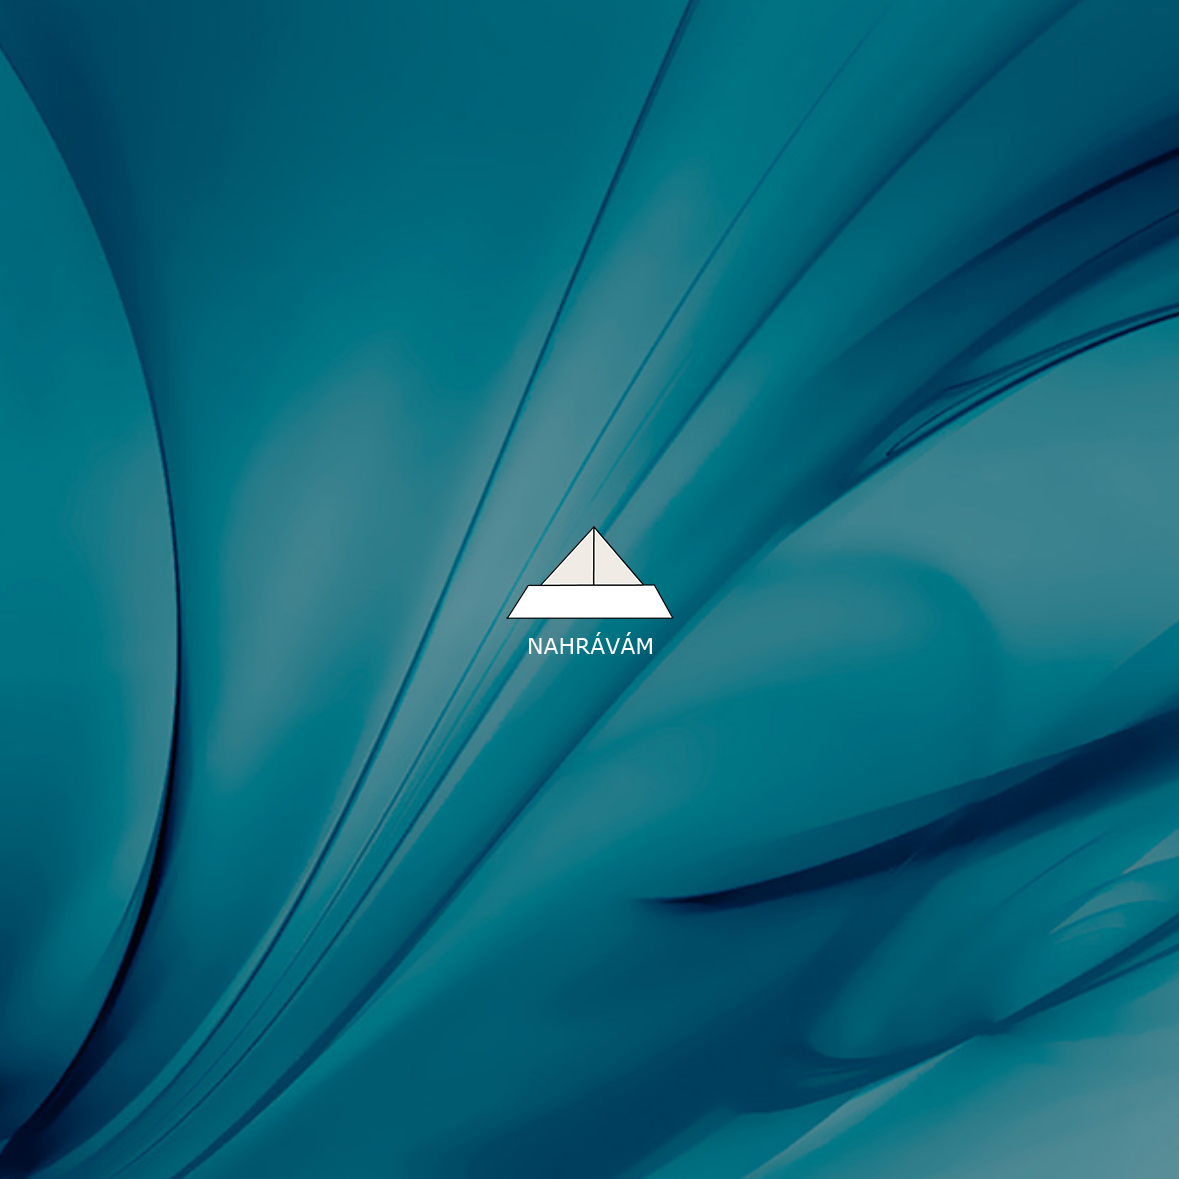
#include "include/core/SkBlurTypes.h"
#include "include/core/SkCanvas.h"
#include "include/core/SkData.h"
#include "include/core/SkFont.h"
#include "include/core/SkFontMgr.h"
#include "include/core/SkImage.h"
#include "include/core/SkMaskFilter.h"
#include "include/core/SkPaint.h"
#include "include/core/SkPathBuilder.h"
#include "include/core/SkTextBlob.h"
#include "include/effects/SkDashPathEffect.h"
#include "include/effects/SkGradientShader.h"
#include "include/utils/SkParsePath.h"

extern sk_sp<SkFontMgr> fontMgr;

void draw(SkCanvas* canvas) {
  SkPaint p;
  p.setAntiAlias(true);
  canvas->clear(SK_ColorWHITE);
  canvas->drawImageRect(SkImages::DeferredFromEncodedData(SkData::MakeFromFileName("images/1.png")), SkRect::MakeLTRB(0, 0, 1179, 1179), SkSamplingOptions());
  canvas->drawImageRect(SkImages::DeferredFromEncodedData(SkData::MakeFromFileName("images/2.png")), SkRect::MakeLTRB(506, 526, 674, 654), SkSamplingOptions());
}
